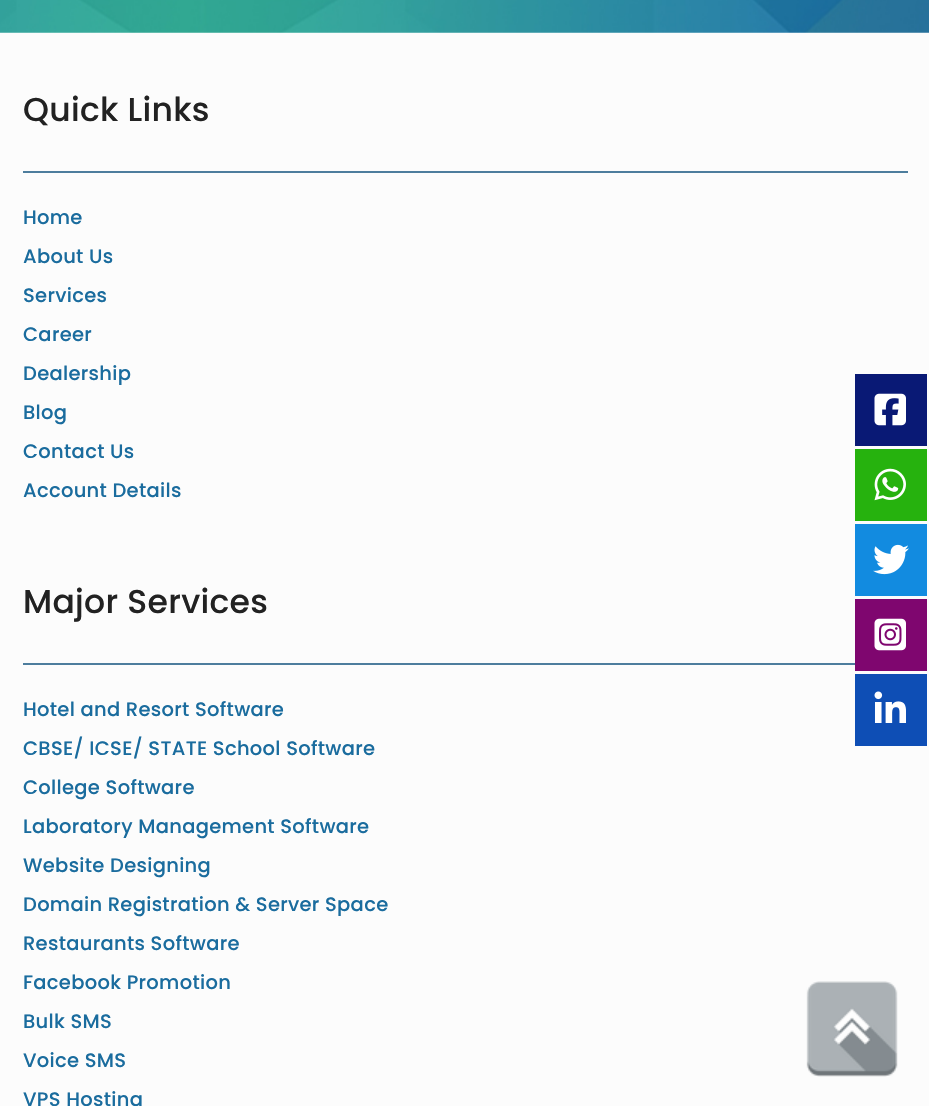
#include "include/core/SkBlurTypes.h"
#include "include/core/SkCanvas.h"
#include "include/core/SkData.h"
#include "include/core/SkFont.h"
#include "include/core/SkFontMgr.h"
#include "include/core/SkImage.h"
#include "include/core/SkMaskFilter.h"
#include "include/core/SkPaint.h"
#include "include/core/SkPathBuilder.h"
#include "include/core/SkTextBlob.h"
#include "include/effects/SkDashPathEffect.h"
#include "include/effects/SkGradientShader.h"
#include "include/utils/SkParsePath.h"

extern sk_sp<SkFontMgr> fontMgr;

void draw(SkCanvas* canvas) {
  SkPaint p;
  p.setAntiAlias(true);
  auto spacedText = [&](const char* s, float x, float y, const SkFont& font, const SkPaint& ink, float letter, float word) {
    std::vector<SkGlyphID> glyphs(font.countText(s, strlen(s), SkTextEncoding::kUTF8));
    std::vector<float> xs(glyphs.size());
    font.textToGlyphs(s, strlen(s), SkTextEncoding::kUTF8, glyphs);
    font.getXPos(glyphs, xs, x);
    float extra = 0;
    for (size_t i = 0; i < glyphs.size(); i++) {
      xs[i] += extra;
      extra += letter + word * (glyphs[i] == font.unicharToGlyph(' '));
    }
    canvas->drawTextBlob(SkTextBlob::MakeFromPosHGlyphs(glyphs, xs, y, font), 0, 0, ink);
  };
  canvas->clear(SkColorSetRGB(252, 252, 252));
  canvas->drawImageRect(SkImages::DeferredFromEncodedData(SkData::MakeFromFileName("images/1.png")), SkRect::MakeLTRB(0, 0, 929, 33), SkSamplingOptions());
  p.setColor(SkColorSetRGB(77, 125, 157));
  canvas->drawRect(SkRect::MakeLTRB(23, 171, 908, 173), p);
  canvas->drawRect(SkRect::MakeLTRB(23, 663, 855, 665), p);
  p.setColor(SkColorSetRGB(9, 25, 117));
  canvas->drawRect(SkRect::MakeLTRB(855, 374, 927, 446), p);
  canvas->drawImageRect(SkImages::DeferredFromEncodedData(SkData::MakeFromFileName("images/2.png")), SkRect::MakeLTRB(874, 393, 906, 426), SkSamplingOptions());
  p.setColor(SkColorSetRGB(38, 178, 14));
  canvas->drawRect(SkRect::MakeLTRB(855, 449, 927, 521), p);
  canvas->drawImageRect(SkImages::DeferredFromEncodedData(SkData::MakeFromFileName("images/3.png")), SkRect::MakeLTRB(874, 468, 906, 501), SkSamplingOptions());
  p.setColor(SkColorSetRGB(18, 139, 224));
  canvas->drawRect(SkRect::MakeLTRB(855, 524, 927, 596), p);
  canvas->drawImageRect(SkImages::DeferredFromEncodedData(SkData::MakeFromFileName("images/4.png")), SkRect::MakeLTRB(873, 544, 909, 575), SkSamplingOptions());
  p.setColor(SkColorSetRGB(127, 6, 111));
  canvas->drawRect(SkRect::MakeLTRB(855, 599, 927, 671), p);
  canvas->drawImageRect(SkImages::DeferredFromEncodedData(SkData::MakeFromFileName("images/5.png")), SkRect::MakeLTRB(874, 618, 906, 651), SkSamplingOptions());
  p.setColor(SkColorSetRGB(14, 78, 181));
  canvas->drawRect(SkRect::MakeLTRB(855, 674, 927, 746), p);
  canvas->drawImageRect(SkImages::DeferredFromEncodedData(SkData::MakeFromFileName("images/6.png")), SkRect::MakeLTRB(874, 691, 906, 723), SkSamplingOptions());
  canvas->drawImageRect(SkImages::DeferredFromEncodedData(SkData::MakeFromFileName("images/7.png")), SkRect::MakeLTRB(806, 981, 898, 1077), SkSamplingOptions());
  SkFont font1(fontMgr->matchFamilyStyle("Poppins", SkFontStyle(500, SkFontStyle::kNormal_Width, SkFontStyle::kUpright_Slant)), 33);
  font1.setSubpixel(true);
  p.setColor(SkColorSetRGB(34, 34, 34));
  spacedText("Quick Links", 23, 121, font1, p, 0.3f, 0);
  SkFont font2(fontMgr->matchFamilyStyle("Poppins", SkFontStyle(500, SkFontStyle::kNormal_Width, SkFontStyle::kUpright_Slant)), 19.5f);
  font2.setSubpixel(true);
  p.setColor(SkColorSetRGB(26, 108, 158));
  spacedText("Home", 23, 224, font2, p, 0.3f, 0);
  spacedText("About Us", 23, 263, font2, p, 0.3f, 0);
  spacedText("Services", 23, 302, font2, p, 0.3f, 0);
  spacedText("Career", 23, 341, font2, p, 0.3f, 0);
  spacedText("Dealership", 23, 380, font2, p, 0.3f, 0);
  spacedText("Blog", 23, 419, font2, p, 0.3f, 0);
  spacedText("Contact Us", 23, 458, font2, p, 0.3f, 0);
  spacedText("Account Details", 23, 497, font2, p, 0.3f, 0);
  p.setColor(SkColorSetRGB(34, 34, 34));
  spacedText("Major Services", 23, 613, font1, p, 0.3f, 0);
  p.setColor(SkColorSetRGB(26, 108, 158));
  spacedText("Hotel and Resort Software", 23, 716, font2, p, 0.3f, 0);
  spacedText("CBSE/ ICSE/ STATE School Software", 23, 755, font2, p, 0.3f, 0);
  spacedText("College Software", 23, 794, font2, p, 0.3f, 0);
  spacedText("Laboratory Management Software", 23, 833, font2, p, 0.3f, 0);
  spacedText("Website Designing", 23, 872, font2, p, 0.3f, 0);
  spacedText("Domain Registration & Server Space", 23, 911, font2, p, 0.3f, 0);
  spacedText("Restaurants Software", 23, 950, font2, p, 0.3f, 0);
  spacedText("Facebook Promotion", 23, 989, font2, p, 0.3f, 0);
  spacedText("Bulk SMS", 23, 1028, font2, p, 0.3f, 0);
  spacedText("Voice SMS", 23, 1067, font2, p, 0.3f, 0);
  spacedText("VPS Hosting", 23, 1106, font2, p, 0.3f, 0);
}
